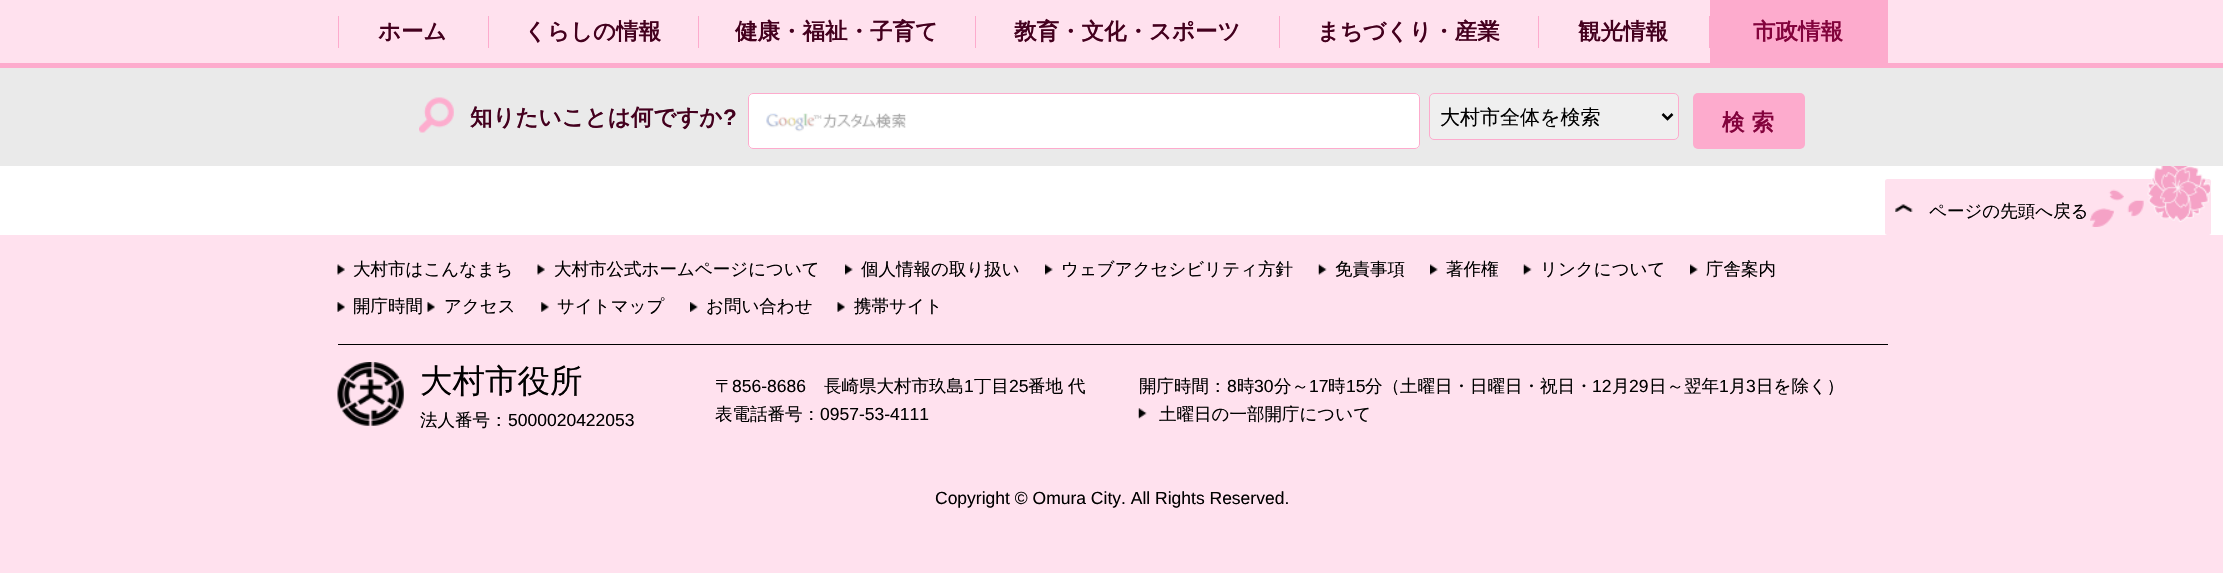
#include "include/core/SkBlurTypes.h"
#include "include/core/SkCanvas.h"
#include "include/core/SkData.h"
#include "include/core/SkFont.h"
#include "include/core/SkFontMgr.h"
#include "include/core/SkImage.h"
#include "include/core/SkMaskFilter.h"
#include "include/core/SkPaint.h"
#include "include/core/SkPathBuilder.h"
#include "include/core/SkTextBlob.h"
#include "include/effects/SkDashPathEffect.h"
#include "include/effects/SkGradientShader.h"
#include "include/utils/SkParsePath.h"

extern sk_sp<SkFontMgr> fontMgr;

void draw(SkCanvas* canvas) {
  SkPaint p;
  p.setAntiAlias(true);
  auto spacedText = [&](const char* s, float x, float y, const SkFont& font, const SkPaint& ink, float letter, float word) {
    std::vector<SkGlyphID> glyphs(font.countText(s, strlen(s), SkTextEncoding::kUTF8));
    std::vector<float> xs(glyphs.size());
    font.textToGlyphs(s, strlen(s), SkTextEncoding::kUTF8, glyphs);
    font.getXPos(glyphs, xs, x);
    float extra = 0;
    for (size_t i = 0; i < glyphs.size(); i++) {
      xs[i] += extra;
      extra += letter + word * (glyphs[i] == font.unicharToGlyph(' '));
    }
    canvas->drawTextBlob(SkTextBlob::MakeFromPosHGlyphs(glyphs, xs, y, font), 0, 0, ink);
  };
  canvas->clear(SK_ColorWHITE);
  p.setColor(SkColorSetRGB(255, 225, 238));
  canvas->drawRect(SkRect::MakeLTRB(0, 0, 2223, 63), p);
  p.setColor(SkColorSetRGB(253, 171, 205));
  canvas->drawRect(SkRect::MakeLTRB(338, 16, 339, 48), p);
  canvas->drawRect(SkRect::MakeLTRB(488, 16, 489, 48), p);
  canvas->drawRect(SkRect::MakeLTRB(698, 16, 699, 48), p);
  canvas->drawRect(SkRect::MakeLTRB(975, 16, 976, 48), p);
  canvas->drawRect(SkRect::MakeLTRB(1279, 16, 1280, 48), p);
  canvas->drawRect(SkRect::MakeLTRB(1538, 16, 1539, 48), p);
  canvas->drawRect(SkRect::MakeLTRB(1709, 16, 1710, 48), p);
  canvas->drawRect(SkRect::MakeLTRB(1710, 0, 1888, 63), p);
  p.setColor(SkColorSetRGB(234, 234, 234));
  canvas->drawRect(SkRect::MakeLTRB(0, 68, 2223, 166), p);
  p.setColor(SkColorSetRGB(253, 171, 205));
  canvas->drawRect(SkRect::MakeLTRB(0, 63, 2223, 68), p);
  canvas->drawImageRect(SkImages::DeferredFromEncodedData(SkData::MakeFromFileName("images/1.png")), SkRect::MakeLTRB(419, 97, 454, 133), SkSamplingOptions());
  p.setColor(SK_ColorWHITE);
  canvas->drawRoundRect(SkRect::MakeLTRB(748, 93, 1420, 149), 5, 5, p);
  canvas->drawImageRect(SkImages::DeferredFromEncodedData(SkData::MakeFromFileName("images/2.png")), SkRect::MakeLTRB(766, 113, 906, 132), SkSamplingOptions());
  p.setStyle(SkPaint::kStroke_Style);
  p.setStrokeWidth(1);
  p.setColor(SkColorSetRGB(253, 171, 205));
  canvas->drawRoundRect(SkRect::MakeLTRB(748.5f, 93.5f, 1419.5f, 148.5f), 4.5f, 4.5f, p);
  p.setStyle(SkPaint::kFill_Style);
  p.setColor(SkColorSetRGB(239, 239, 239));
  canvas->drawRoundRect(SkRect::MakeLTRB(1429.5f, 93.5f, 1678.5f, 139.5f), 4.5f, 4.5f, p);
  p.setStyle(SkPaint::kStroke_Style);
  p.setColor(SkColorSetRGB(253, 171, 205));
  canvas->drawRoundRect(SkRect::MakeLTRB(1429.5f, 93.5f, 1678.5f, 139.5f), 4.5f, 4.5f, p);
  p.setStrokeWidth(2.5f);
  p.setColor(SK_ColorBLACK);
  canvas->drawPath(SkPathBuilder().moveTo(1662.5f, 114).lineTo(1667.5f, 119).lineTo(1672.5f, 114).detach(), p);
  p.setStyle(SkPaint::kFill_Style);
  p.setColor(SkColorSetRGB(253, 171, 205));
  canvas->drawRoundRect(SkRect::MakeLTRB(1693, 93, 1805, 149), 5, 5, p);
  p.setColor(SkColorSetRGB(255, 225, 238));
  canvas->drawRoundRect(SkRect::MakeLTRB(1885, 179, 2211, 235), 2.5f, 2.5f, p);
  canvas->drawImageRect(SkImages::DeferredFromEncodedData(SkData::MakeFromFileName("images/3.png")), SkRect::MakeLTRB(1895, 204, 1913, 212), SkSamplingOptions());
  canvas->drawImageRect(SkImages::DeferredFromEncodedData(SkData::MakeFromFileName("images/4.png")), SkRect::MakeLTRB(2090, 166, 2211, 227), SkSamplingOptions());
  canvas->drawRect(SkRect::MakeLTRB(0, 235, 2223, 573), p);
  canvas->drawImageRect(SkImages::DeferredFromEncodedData(SkData::MakeFromFileName("images/5.png")), SkRect::MakeLTRB(337, 264, 345, 275), SkSamplingOptions());
  canvas->drawImageRect(SkImages::DeferredFromEncodedData(SkData::MakeFromFileName("images/5.png")), SkRect::MakeLTRB(537, 264, 545, 275), SkSamplingOptions());
  canvas->drawImageRect(SkImages::DeferredFromEncodedData(SkData::MakeFromFileName("images/6.png")), SkRect::MakeLTRB(845, 264, 853, 275), SkSamplingOptions());
  canvas->drawImageRect(SkImages::DeferredFromEncodedData(SkData::MakeFromFileName("images/7.png")), SkRect::MakeLTRB(1045, 264, 1053, 275), SkSamplingOptions());
  canvas->drawImageRect(SkImages::DeferredFromEncodedData(SkData::MakeFromFileName("images/8.png")), SkRect::MakeLTRB(1318, 264, 1327, 275), SkSamplingOptions());
  canvas->drawImageRect(SkImages::DeferredFromEncodedData(SkData::MakeFromFileName("images/6.png")), SkRect::MakeLTRB(1430, 264, 1438, 275), SkSamplingOptions());
  canvas->drawImageRect(SkImages::DeferredFromEncodedData(SkData::MakeFromFileName("images/8.png")), SkRect::MakeLTRB(1523, 264, 1532, 275), SkSamplingOptions());
  canvas->drawImageRect(SkImages::DeferredFromEncodedData(SkData::MakeFromFileName("images/7.png")), SkRect::MakeLTRB(1690, 264, 1698, 275), SkSamplingOptions());
  canvas->drawImageRect(SkImages::DeferredFromEncodedData(SkData::MakeFromFileName("images/9.png")), SkRect::MakeLTRB(337, 302, 345, 312), SkSamplingOptions());
  canvas->drawImageRect(SkImages::DeferredFromEncodedData(SkData::MakeFromFileName("images/10.png")), SkRect::MakeLTRB(427, 302, 435, 312), SkSamplingOptions());
  canvas->drawImageRect(SkImages::DeferredFromEncodedData(SkData::MakeFromFileName("images/11.png")), SkRect::MakeLTRB(541, 302, 549, 312), SkSamplingOptions());
  canvas->drawImageRect(SkImages::DeferredFromEncodedData(SkData::MakeFromFileName("images/12.png")), SkRect::MakeLTRB(690, 302, 698, 312), SkSamplingOptions());
  canvas->drawImageRect(SkImages::DeferredFromEncodedData(SkData::MakeFromFileName("images/9.png")), SkRect::MakeLTRB(837, 302, 845, 312), SkSamplingOptions());
  p.setColor(SK_ColorBLACK);
  canvas->drawRect(SkRect::MakeLTRB(338, 344, 1888, 345), p);
  canvas->drawImageRect(SkImages::DeferredFromEncodedData(SkData::MakeFromFileName("images/13.png")), SkRect::MakeLTRB(337, 362, 404, 426), SkSamplingOptions());
  canvas->drawImageRect(SkImages::DeferredFromEncodedData(SkData::MakeFromFileName("images/14.png")), SkRect::MakeLTRB(1138, 408, 1147, 419), SkSamplingOptions());
  SkFont font1(fontMgr->matchFamilyStyle("WenQuanYi Zen Hei", SkFontStyle::Bold()), 22.5f);
  font1.setSubpixel(true);
  p.setColor(SkColorSetRGB(68, 0, 30));
  canvas->drawString("ホーム", 378, 39, font1, p);
  canvas->drawString("くらしの情報", 524, 39, font1, p);
  canvas->drawString("健康・福祉・子育て", 735, 39, font1, p);
  canvas->drawString("教育・文化・スポーツ", 1014, 39, font1, p);
  canvas->drawString("まちづくり・産業", 1317, 39, font1, p);
  canvas->drawString("観光情報", 1578, 39, font1, p);
  p.setColor(SkColorSetRGB(131, 3, 60));
  canvas->drawString("市政情報", 1753, 39, font1, p);
  p.setColor(SkColorSetRGB(68, 0, 30));
  canvas->drawString("知りたいことは何ですか", 470, 125, font1, p);
  SkFont font2(fontMgr->matchFamilyStyle("Liberation Sans", SkFontStyle::Bold()), 22.5f);
  font2.setSubpixel(true);
  canvas->drawString("?", 723, 125, font2, p);
  SkFont font3(fontMgr->matchFamilyStyle("WenQuanYi Zen Hei", SkFontStyle(500, SkFontStyle::kNormal_Width, SkFontStyle::kUpright_Slant)), 20);
  font3.setSubpixel(true);
  p.setColor(SK_ColorBLACK);
  canvas->drawString("大村市全体を検索", 1440, 124, font3, p);
  p.setColor(SkColorSetRGB(131, 3, 60));
  spacedText("検索", 1722, 130, font1, p, 7, 0);
  SkFont font4(fontMgr->matchFamilyStyle("WenQuanYi Zen Hei", SkFontStyle(500, SkFontStyle::kNormal_Width, SkFontStyle::kUpright_Slant)), 17.5f);
  font4.setSubpixel(true);
  p.setColor(SK_ColorBLACK);
  canvas->drawString("ページの先頭へ戻る", 1929, 217, font4, p);
  canvas->drawString("大村市はこんなまち", 353, 275, font4, p);
  canvas->drawString("大村市公式ホームページについて", 554, 275, font4, p);
  canvas->drawString("個人情報の取り扱い", 861, 275, font4, p);
  canvas->drawString("ウェブアクセシビリティ方針", 1061, 275, font4, p);
  canvas->drawString("免責事項", 1335, 275, font4, p);
  canvas->drawString("著作権", 1446, 275, font4, p);
  canvas->drawString("リンクについて", 1540, 275, font4, p);
  canvas->drawString("庁舎案内", 1706, 275, font4, p);
  canvas->drawString("開庁時間", 353, 312, font4, p);
  canvas->drawString("アクセス", 444, 312, font4, p);
  canvas->drawString("サイトマップ", 557, 312, font4, p);
  canvas->drawString("お問い合わせ", 706, 312, font4, p);
  canvas->drawString("携帯サイト", 854, 312, font4, p);
  SkFont font5(fontMgr->matchFamilyStyle("WenQuanYi Zen Hei", SkFontStyle(500, SkFontStyle::kNormal_Width, SkFontStyle::kUpright_Slant)), 32.5f);
  font5.setSubpixel(true);
  canvas->drawString("大村市役所", 420, 392, font5, p);
  canvas->drawString("法人番号：", 420, 426, font4, p);
  SkFont font6(fontMgr->matchFamilyStyle("Liberation Sans", SkFontStyle::Normal()), 17.5f);
  font6.setSubpixel(true);
  canvas->drawString("5000020422053", 508, 426, font6, p);
  canvas->drawString("〒", 715, 392, font4, p);
  canvas->drawString("856-8686", 732, 392, font6, p);
  canvas->drawString("長崎県大村市玖島", 824, 392, font4, p);
  canvas->drawString("1", 964, 392, font6, p);
  canvas->drawString("丁目", 974, 392, font4, p);
  canvas->drawString("25", 1009, 392, font6, p);
  canvas->drawString("番地", 1028, 392, font4, p);
  canvas->drawString("代", 1068, 392, font4, p);
  canvas->drawString("表電話番号：", 715, 420, font4, p);
  canvas->drawString("0957-53-4111", 820, 420, font6, p);
  canvas->drawString("開庁時間：", 1139, 392, font4, p);
  canvas->drawString("8", 1227, 392, font6, p);
  canvas->drawString("時", 1237, 392, font4, p);
  canvas->drawString("30", 1254, 392, font6, p);
  canvas->drawString("分～", 1274, 392, font4, p);
  canvas->drawString("17", 1309, 392, font6, p);
  canvas->drawString("時", 1328, 392, font4, p);
  canvas->drawString("15", 1346, 392, font6, p);
  canvas->drawString("分（土曜日・日曜日・祝日・", 1365, 392, font4, p);
  canvas->drawString("12", 1592, 392, font6, p);
  canvas->drawString("月", 1612, 392, font4, p);
  canvas->drawString("29", 1629, 392, font6, p);
  canvas->drawString("日～翌年", 1649, 392, font4, p);
  canvas->drawString("1", 1719, 392, font6, p);
  canvas->drawString("月", 1729, 392, font4, p);
  canvas->drawString("3", 1746, 392, font6, p);
  canvas->drawString("日を除く）", 1756, 392, font4, p);
  canvas->drawString("土曜日の一部開庁について", 1159, 420, font4, p);
  canvas->drawString("Copyright © Omura City. All Rights Reserved.", 935, 504, font6, p);
}
